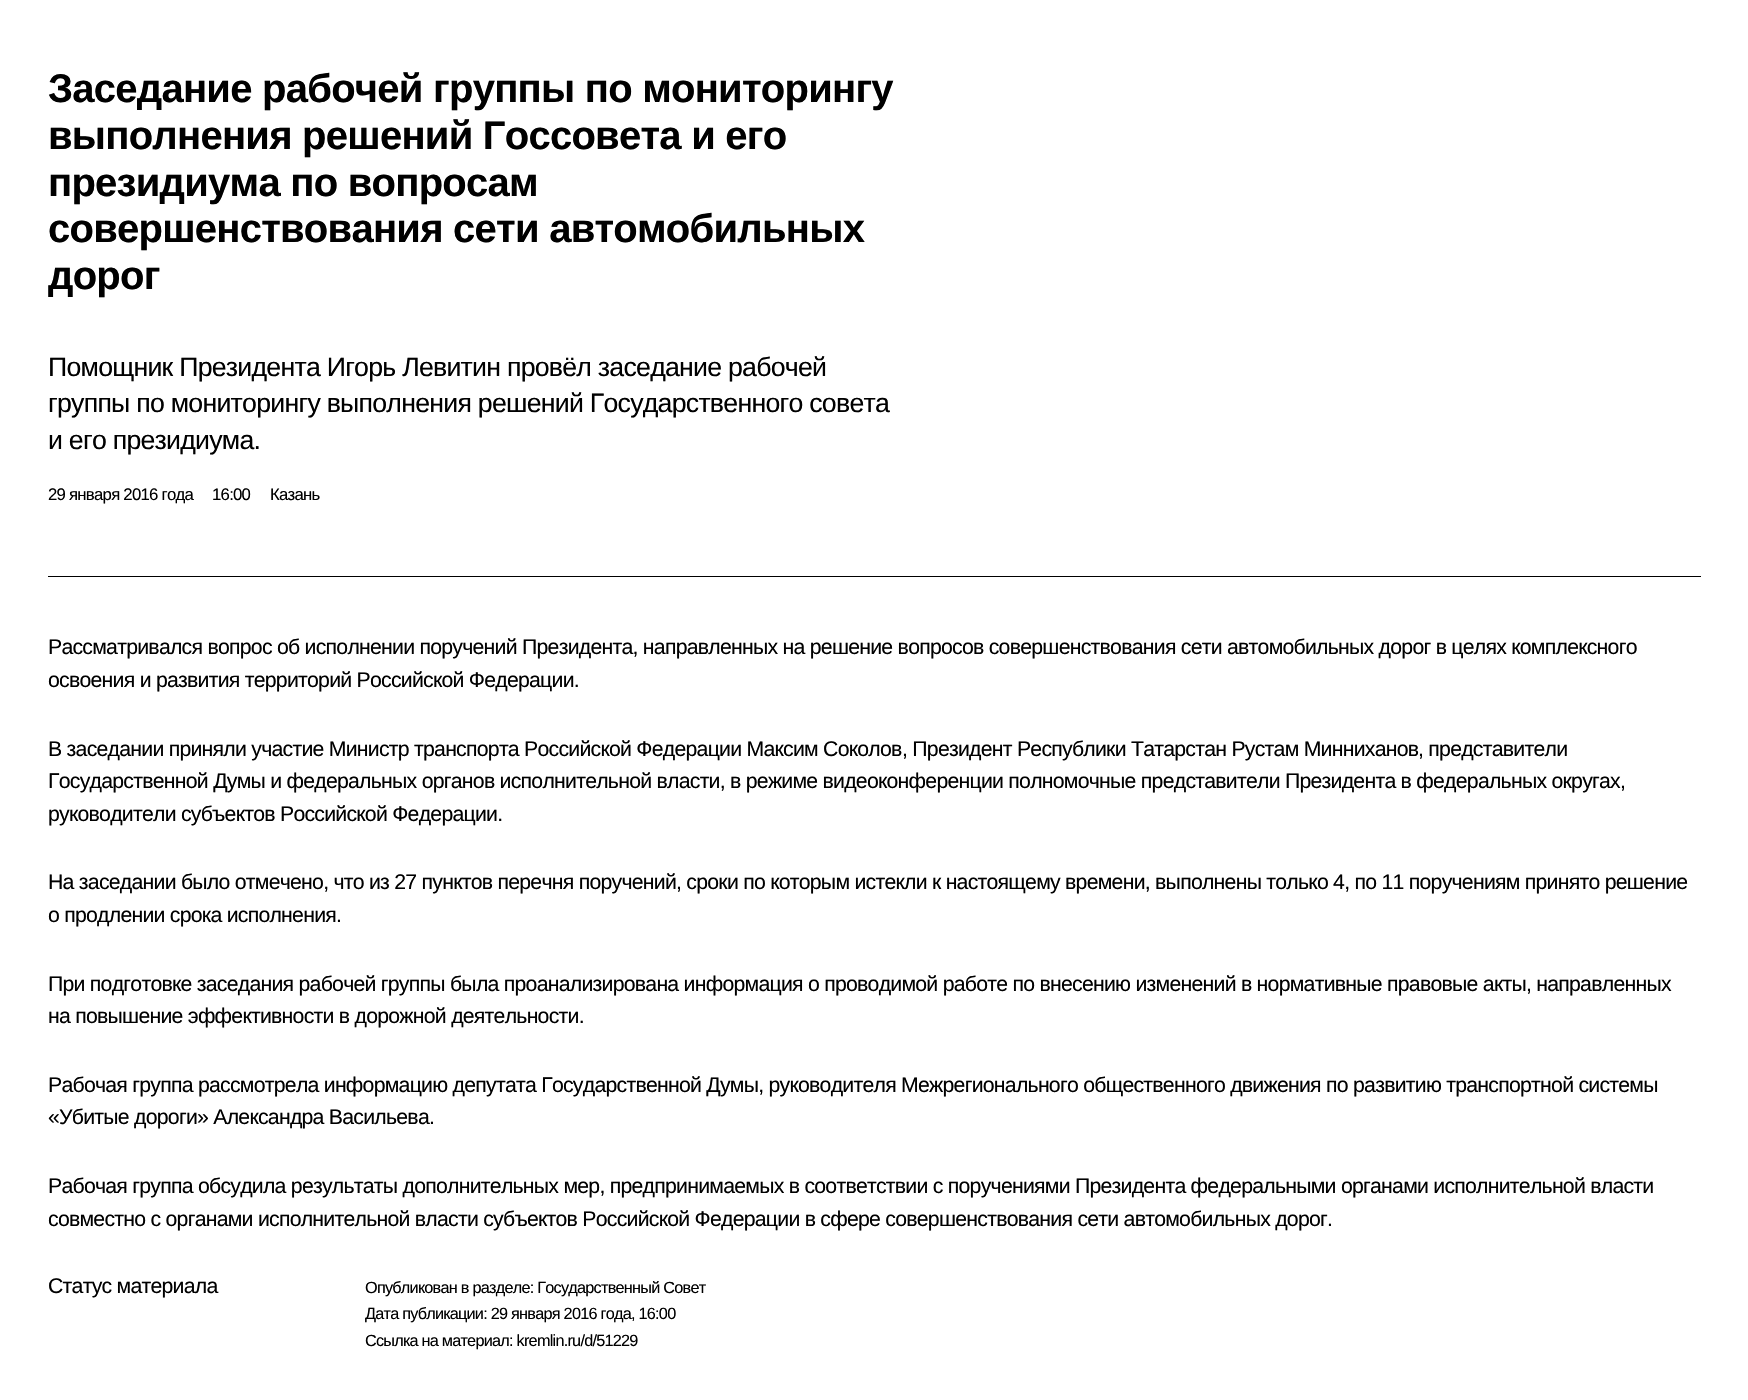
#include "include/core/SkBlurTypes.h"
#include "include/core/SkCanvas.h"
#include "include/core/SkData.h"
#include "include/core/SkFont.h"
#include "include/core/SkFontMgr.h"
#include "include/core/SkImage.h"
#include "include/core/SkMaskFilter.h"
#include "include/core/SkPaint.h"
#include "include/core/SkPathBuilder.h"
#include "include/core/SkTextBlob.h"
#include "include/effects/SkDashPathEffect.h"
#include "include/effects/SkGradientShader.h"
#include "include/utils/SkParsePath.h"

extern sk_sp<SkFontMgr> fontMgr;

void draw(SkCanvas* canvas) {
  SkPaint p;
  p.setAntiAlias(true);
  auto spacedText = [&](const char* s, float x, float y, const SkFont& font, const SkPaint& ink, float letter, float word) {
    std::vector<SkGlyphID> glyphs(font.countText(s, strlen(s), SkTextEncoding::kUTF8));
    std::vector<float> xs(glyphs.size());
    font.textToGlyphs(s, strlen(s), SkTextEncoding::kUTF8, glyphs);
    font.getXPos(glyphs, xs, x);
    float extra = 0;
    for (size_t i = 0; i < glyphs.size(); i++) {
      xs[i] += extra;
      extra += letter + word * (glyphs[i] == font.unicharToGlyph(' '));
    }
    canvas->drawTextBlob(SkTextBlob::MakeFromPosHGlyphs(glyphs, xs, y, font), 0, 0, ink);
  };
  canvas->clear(SK_ColorWHITE);
  p.setColor(SK_ColorBLACK);
  canvas->drawRect(SkRect::MakeLTRB(48, 576, 1701, 577), p);
  SkFont font1(fontMgr->matchFamilyStyle("Liberation Sans", SkFontStyle::Bold()), 40);
  font1.setSubpixel(true);
  spacedText("Заседание рабочей группы по мониторингу", 48, 102, font1, p, -0.75f, 0);
  spacedText("выполнения решений Госсовета и его", 48, 149, font1, p, -0.75f, 0);
  spacedText("президиума по вопросам", 48, 196, font1, p, -0.75f, 0);
  spacedText("совершенствования сети автомобильных", 48, 242, font1, p, -0.75f, 0);
  spacedText("дорог", 48, 289, font1, p, -0.75f, 0);
  SkFont font2(fontMgr->matchFamilyStyle("Liberation Sans", SkFontStyle::Normal()), 26.7f);
  font2.setSubpixel(true);
  spacedText("Помощник Президента Игорь Левитин провёл заседание рабочей", 48, 376, font2, p, -0.75f, 0);
  spacedText("группы по мониторингу выполнения решений Государственного совета", 48, 412, font2, p, -0.75f, 0);
  spacedText("и его президиума.", 48, 449, font2, p, -0.75f, 0);
  SkFont font3(fontMgr->matchFamilyStyle("Liberation Sans", SkFontStyle::Normal()), 16.75f);
  font3.setSubpixel(true);
  spacedText("29 января 2016 года", 48, 500, font3, p, -0.75f, 0);
  spacedText("16:00", 212, 500, font3, p, -0.75f, 0);
  spacedText("Казань", 270, 500, font3, p, -0.75f, 0);
  SkFont font4(fontMgr->matchFamilyStyle("Liberation Sans", SkFontStyle::Normal()), 21.25f);
  font4.setSubpixel(true);
  spacedText("Рассматривался вопрос об исполнении поручений Президента, направленных на решение вопросов совершенствования сети автомобильных дорог в целях комплексного", 48, 654, font4, p, -0.75f, 0);
  spacedText("освоения и развития территорий Российской Федерации.", 48, 687, font4, p, -0.75f, 0);
  spacedText("В заседании приняли участие Министр транспорта Российской Федерации Максим Соколов", 48, 756, font4, p, -0.75f, 0);
  spacedText(", Президент Республики Татарстан Рустам Минниханов", 902, 756, font4, p, -0.75f, 0);
  spacedText(", представители", 1418, 756, font4, p, -0.75f, 0);
  spacedText("Государственной Думы и федеральных органов исполнительной власти, в режиме видеоконференции полномочные представители Президента в федеральных округах,", 48, 788, font4, p, -0.75f, 0);
  spacedText("руководители субъектов Российской Федерации.", 48, 821, font4, p, -0.75f, 0);
  spacedText("На заседании было отмечено, что из 27 пунктов перечня поручений, сроки по которым истекли к настоящему времени, выполнены только 4, по 11 поручениям принято решение", 48, 889, font4, p, -0.75f, 0);
  spacedText("о продлении срока исполнения.", 48, 922, font4, p, -0.75f, 0);
  spacedText("При подготовке заседания рабочей группы была проанализирована информация о проводимой работе по внесению изменений в нормативные правовые акты, направленных", 48, 991, font4, p, -0.75f, 0);
  spacedText("на повышение эффективности в дорожной деятельности.", 48, 1023, font4, p, -0.75f, 0);
  spacedText("Рабочая группа рассмотрела информацию депутата Государственной Думы, руководителя Межрегионального общественного движения по развитию транспортной системы", 48, 1092, font4, p, -0.75f, 0);
  spacedText("«Убитые дороги» Александра Васильева.", 48, 1124, font4, p, -0.75f, 0);
  spacedText("Рабочая группа обсудила результаты дополнительных мер, предпринимаемых в соответствии с поручениями Президента федеральными органами исполнительной власти", 48, 1193, font4, p, -0.75f, 0);
  spacedText("совместно с органами исполнительной власти субъектов Российской Федерации в сфере совершенствования сети автомобильных дорог.", 48, 1226, font4, p, -0.75f, 0);
  spacedText("Статус материала", 48, 1293, font4, p, -0.75f, 0);
  SkFont font5(fontMgr->matchFamilyStyle("Liberation Sans", SkFontStyle::Normal()), 16.25f);
  font5.setSubpixel(true);
  spacedText("Опубликован в разделе: Государственный Совет", 365, 1293, font5, p, -0.75f, 0);
  spacedText("Дата публикации: 29 января 2016 года, 16:00", 365, 1319, font5, p, -0.75f, 0);
  spacedText("Ссылка на материал: kremlin.ru/d/51229", 365, 1346, font5, p, -0.75f, 0);
}
